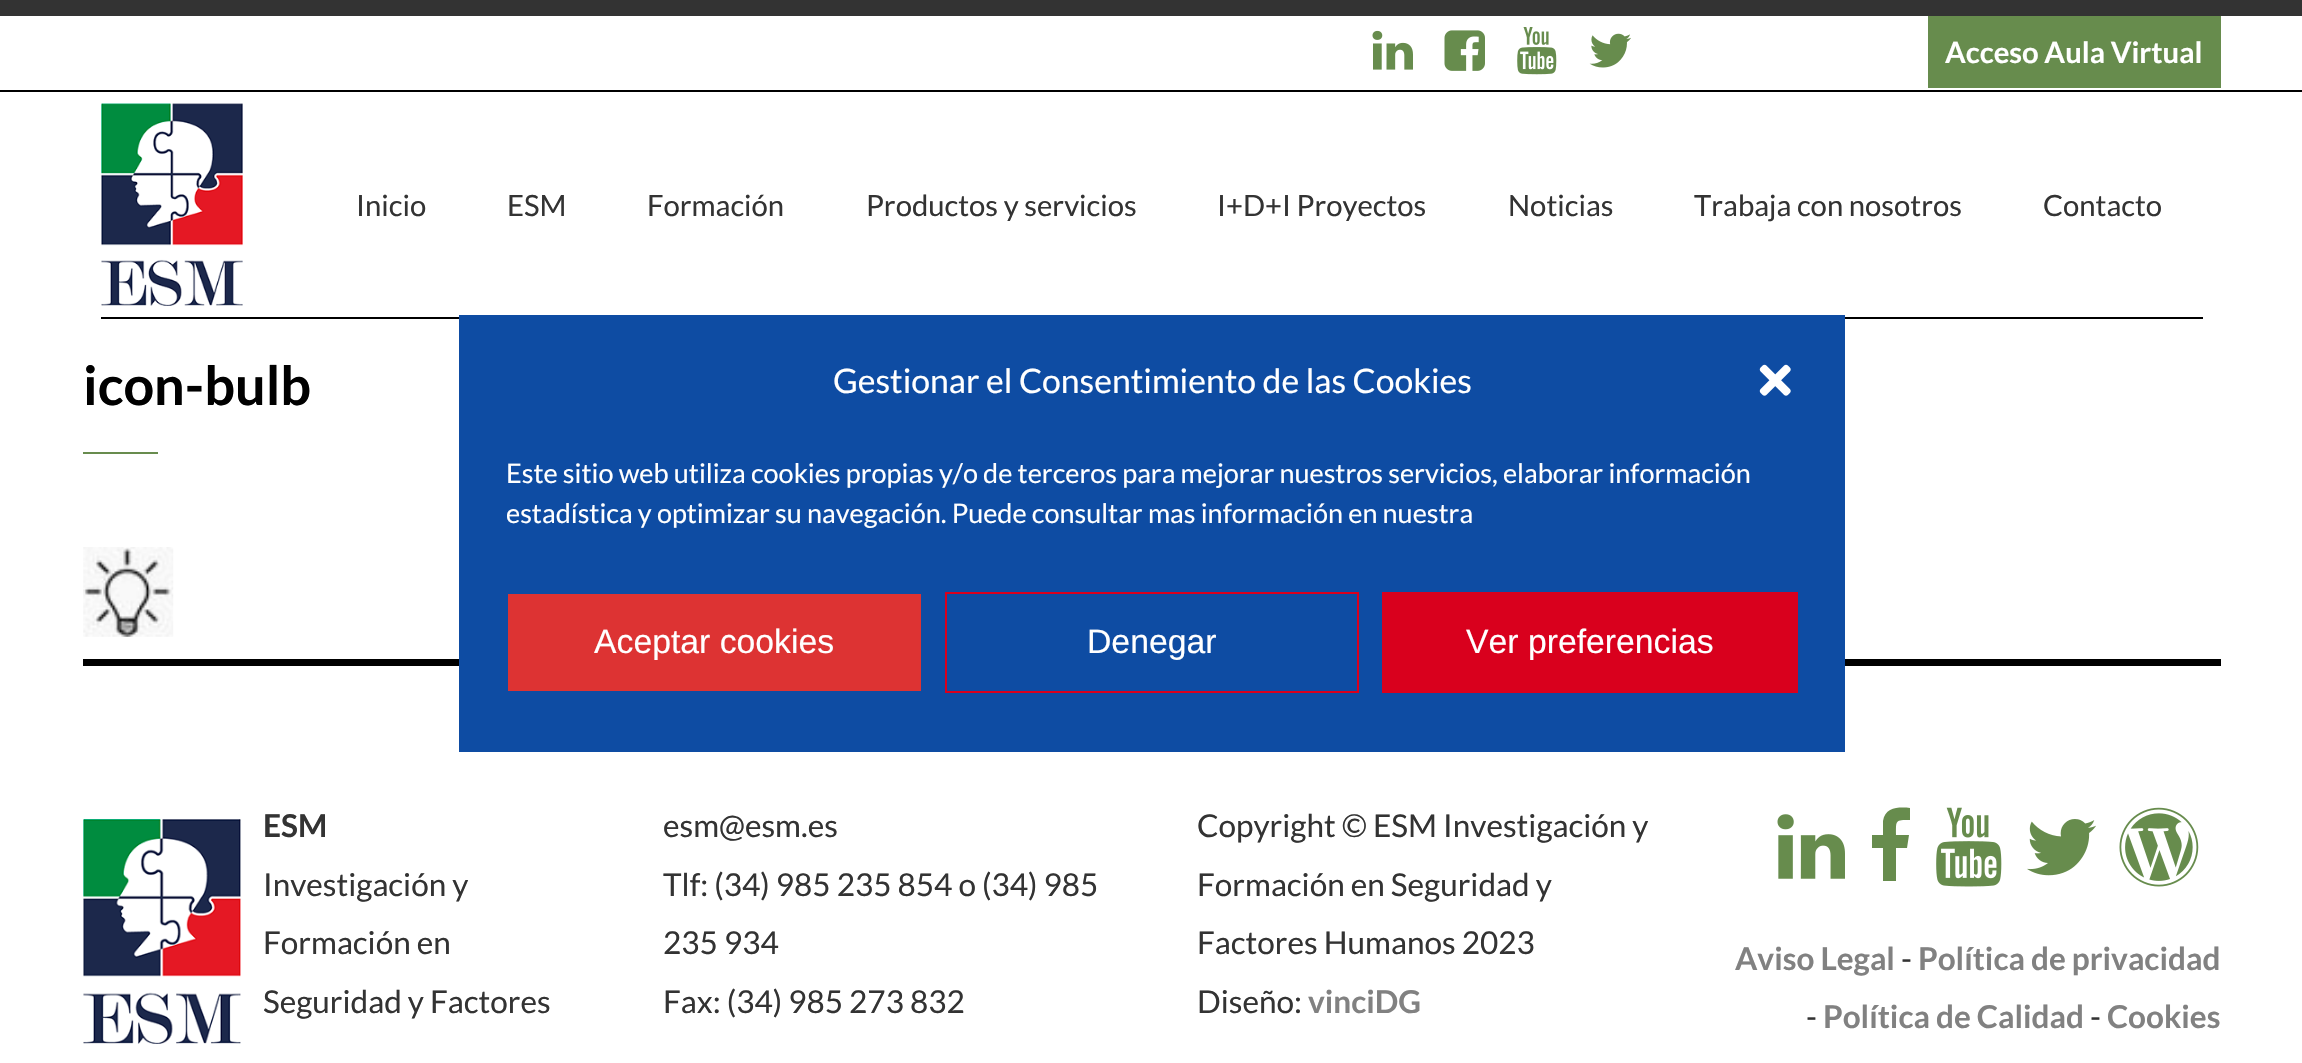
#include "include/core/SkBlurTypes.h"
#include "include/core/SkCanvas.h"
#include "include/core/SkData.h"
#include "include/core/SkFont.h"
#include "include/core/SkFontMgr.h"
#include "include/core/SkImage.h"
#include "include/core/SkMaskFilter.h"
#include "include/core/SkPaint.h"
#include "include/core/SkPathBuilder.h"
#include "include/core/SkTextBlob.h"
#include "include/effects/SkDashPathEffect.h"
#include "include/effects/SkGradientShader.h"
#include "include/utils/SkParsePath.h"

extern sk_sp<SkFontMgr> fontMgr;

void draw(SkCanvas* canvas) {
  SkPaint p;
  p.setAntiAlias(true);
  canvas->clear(SK_ColorWHITE);
  p.setColor(SkColorSetRGB(51, 51, 51));
  canvas->drawRect(SkRect::MakeLTRB(0, 0, 2302, 16), p);
  p.setColor(SK_ColorBLACK);
  canvas->drawRect(SkRect::MakeLTRB(0, 90, 2302, 92), p);
  canvas->drawImageRect(SkImages::DeferredFromEncodedData(SkData::MakeFromFileName("images/1.png")), SkRect::MakeLTRB(1372, 30, 1413, 70), SkSamplingOptions());
  canvas->drawImageRect(SkImages::DeferredFromEncodedData(SkData::MakeFromFileName("images/2.png")), SkRect::MakeLTRB(1444, 30, 1485, 71), SkSamplingOptions());
  canvas->drawImageRect(SkImages::DeferredFromEncodedData(SkData::MakeFromFileName("images/3.png")), SkRect::MakeLTRB(1517, 27, 1557, 75), SkSamplingOptions());
  canvas->drawImageRect(SkImages::DeferredFromEncodedData(SkData::MakeFromFileName("images/4.png")), SkRect::MakeLTRB(1589, 33, 1631, 68), SkSamplingOptions());
  p.setColor(SkColorSetRGB(103, 140, 77));
  canvas->drawRect(SkRect::MakeLTRB(1928, 16, 2221, 88), p);
  p.setColor(SK_ColorBLACK);
  canvas->drawRect(SkRect::MakeLTRB(101, 317, 2203, 319), p);
  canvas->drawImageRect(SkImages::DeferredFromEncodedData(SkData::MakeFromFileName("images/5.png")), SkRect::MakeLTRB(101, 103, 243, 306), SkSamplingOptions());
  p.setColor(SkColorSetRGB(104, 140, 78));
  canvas->drawRect(SkRect::MakeLTRB(83, 452, 158, 454), p);
  canvas->drawImageRect(SkImages::DeferredFromEncodedData(SkData::MakeFromFileName("images/6.png")), SkRect::MakeLTRB(83, 547, 174, 637), SkSamplingOptions());
  p.setColor(SK_ColorBLACK);
  canvas->drawRect(SkRect::MakeLTRB(83, 659, 2221, 666), p);
  canvas->drawImageRect(SkImages::DeferredFromEncodedData(SkData::MakeFromFileName("images/7.png")), SkRect::MakeLTRB(83, 819, 241, 1044), SkSamplingOptions());
  canvas->drawImageRect(SkImages::DeferredFromEncodedData(SkData::MakeFromFileName("images/8.png")), SkRect::MakeLTRB(1777, 814, 1845, 879), SkSamplingOptions());
  p.setColor(SkColorSetRGB(103, 140, 77));
  canvas->drawPath(SkPathBuilder().moveTo(1910, 808).lineTo(1910, 820).cubicTo(1895, 820, 1896, 820, 1896, 835).lineTo(1909, 835).lineTo(1907, 848).lineTo(1896, 848).lineTo(1896, 881).lineTo(1883, 881).lineTo(1883, 848).lineTo(1872, 848).lineTo(1872, 835).lineTo(1883, 835).lineTo(1883, 821).cubicTo(1885, 807, 1899, 807, 1910, 808).close().detach(), p);
  canvas->drawImageRect(SkImages::DeferredFromEncodedData(SkData::MakeFromFileName("images/9.png")), SkRect::MakeLTRB(1936, 807, 2002, 887), SkSamplingOptions());
  canvas->drawImageRect(SkImages::DeferredFromEncodedData(SkData::MakeFromFileName("images/10.png")), SkRect::MakeLTRB(2027, 819, 2096, 876), SkSamplingOptions());
  canvas->drawImageRect(SkImages::DeferredFromEncodedData(SkData::MakeFromFileName("images/11.png")), SkRect::MakeLTRB(2119, 807, 2199, 887), SkSamplingOptions());
  p.setColor(SkColorSetRGB(14, 76, 163));
  canvas->drawRect(SkRect::MakeLTRB(459, 315, 1845, 752), p);
  canvas->drawImageRect(SkImages::DeferredFromEncodedData(SkData::MakeFromFileName("images/12.png")), SkRect::MakeLTRB(1759, 364, 1791, 396), SkSamplingOptions());
  p.setColor(SkColorSetRGB(221, 51, 51));
  canvas->drawRect(SkRect::MakeLTRB(508, 594, 921, 691), p);
  p.setStyle(SkPaint::kStroke_Style);
  p.setStrokeWidth(2);
  p.setColor(SkColorSetRGB(217, 0, 29));
  canvas->drawRect(SkRect::MakeLTRB(946, 593, 1358, 692), p);
  p.setStyle(SkPaint::kFill_Style);
  canvas->drawRect(SkRect::MakeLTRB(1382, 592, 1798, 693), p);
  SkFont font1(fontMgr->matchFamilyStyle("Lato", SkFontStyle::Bold()), 29.25f);
  font1.setSubpixel(true);
  p.setColor(SK_ColorWHITE);
  canvas->drawString("Acceso Aula Virtual", 1945, 63, font1, p);
  SkFont font2(fontMgr->matchFamilyStyle("Lato", SkFontStyle::Normal()), 29.25f);
  font2.setSubpixel(true);
  p.setColor(SkColorSetRGB(51, 51, 51));
  canvas->drawString("Inicio", 356, 216, font2, p);
  canvas->drawString("ESM", 507, 216, font2, p);
  canvas->drawString("Formación", 647, 216, font2, p);
  canvas->drawString("Productos y servicios", 866, 216, font2, p);
  canvas->drawString("I+D+I Proyectos", 1217, 216, font2, p);
  canvas->drawString("Noticias", 1508, 216, font2, p);
  canvas->drawString("Trabaja con nosotros", 1694, 216, font2, p);
  canvas->drawString("Contacto", 2043, 216, font2, p);
  SkFont font3(fontMgr->matchFamilyStyle("Lato", SkFontStyle::Bold()), 54);
  font3.setSubpixel(true);
  p.setColor(SK_ColorBLACK);
  canvas->drawString("icon-bulb", 83, 405, font3, p);
  SkFont font4(fontMgr->matchFamilyStyle("Lato", SkFontStyle::Bold()), 31.5f);
  font4.setSubpixel(true);
  p.setColor(SkColorSetRGB(51, 51, 51));
  canvas->drawString("ESM", 263, 837, font4, p);
  SkFont font5(fontMgr->matchFamilyStyle("Lato", SkFontStyle::Normal()), 31.5f);
  font5.setSubpixel(true);
  canvas->drawString("Investigación y", 263, 896, font5, p);
  canvas->drawString("Formación en", 263, 954, font5, p);
  canvas->drawString("Seguridad y Factores", 263, 1013, font5, p);
  canvas->drawString("esm@esm.es", 663, 837, font5, p);
  canvas->drawString("Tlf: (34) 985 235 854 o (34) 985", 663, 896, font5, p);
  canvas->drawString("235 934", 663, 954, font5, p);
  canvas->drawString("Fax: (34) 985 273 832", 663, 1013, font5, p);
  canvas->drawString("Copyright © ESM Investigación y", 1197, 837, font5, p);
  canvas->drawString("Formación en Seguridad y", 1197, 896, font5, p);
  canvas->drawString("Factores Humanos 2023", 1197, 954, font5, p);
  canvas->drawString("Diseño:", 1197, 1013, font5, p);
  p.setColor(SkColorSetRGB(129, 129, 129));
  canvas->drawString("vinciDG", 1308, 1013, font4, p);
  canvas->drawString("Aviso Legal", 1735, 970, font4, p);
  p.setColor(SkColorSetRGB(51, 51, 51));
  canvas->drawString("-", 1901, 970, font5, p);
  p.setColor(SkColorSetRGB(129, 129, 129));
  canvas->drawString("Política de privacidad", 1918, 970, font4, p);
  p.setColor(SkColorSetRGB(51, 51, 51));
  canvas->drawString("-", 1806, 1028, font5, p);
  p.setColor(SkColorSetRGB(129, 129, 129));
  canvas->drawString("Política de Calidad", 1823, 1028, font4, p);
  p.setColor(SkColorSetRGB(51, 51, 51));
  canvas->drawString("-", 2090, 1028, font5, p);
  p.setColor(SkColorSetRGB(129, 129, 129));
  canvas->drawString("Cookies", 2107, 1028, font4, p);
  SkFont font6(fontMgr->matchFamilyStyle("Lato", SkFontStyle::Normal()), 33.75f);
  font6.setSubpixel(true);
  p.setColor(SK_ColorWHITE);
  canvas->drawString("Gestionar el Consentimiento de las Cookies", 833, 393, font6, p);
  SkFont font7(fontMgr->matchFamilyStyle("Lato", SkFontStyle::Normal()), 27);
  font7.setSubpixel(true);
  canvas->drawString("Este sitio web utiliza cookies propias y/o de terceros para mejorar nuestros servicios, elaborar información", 506, 483, font7, p);
  canvas->drawString("estadística y optimizar su navegación. Puede consultar mas información en nuestra", 506, 523, font7, p);
  SkFont font8(fontMgr->matchFamilyStyle("Liberation Sans", SkFontStyle::Normal()), 33.75f);
  font8.setSubpixel(true);
  canvas->drawString("Aceptar cookies", 594, 653, font8, p);
  canvas->drawString("Denegar", 1087, 653, font8, p);
  canvas->drawString("Ver preferencias", 1466, 653, font8, p);
}
